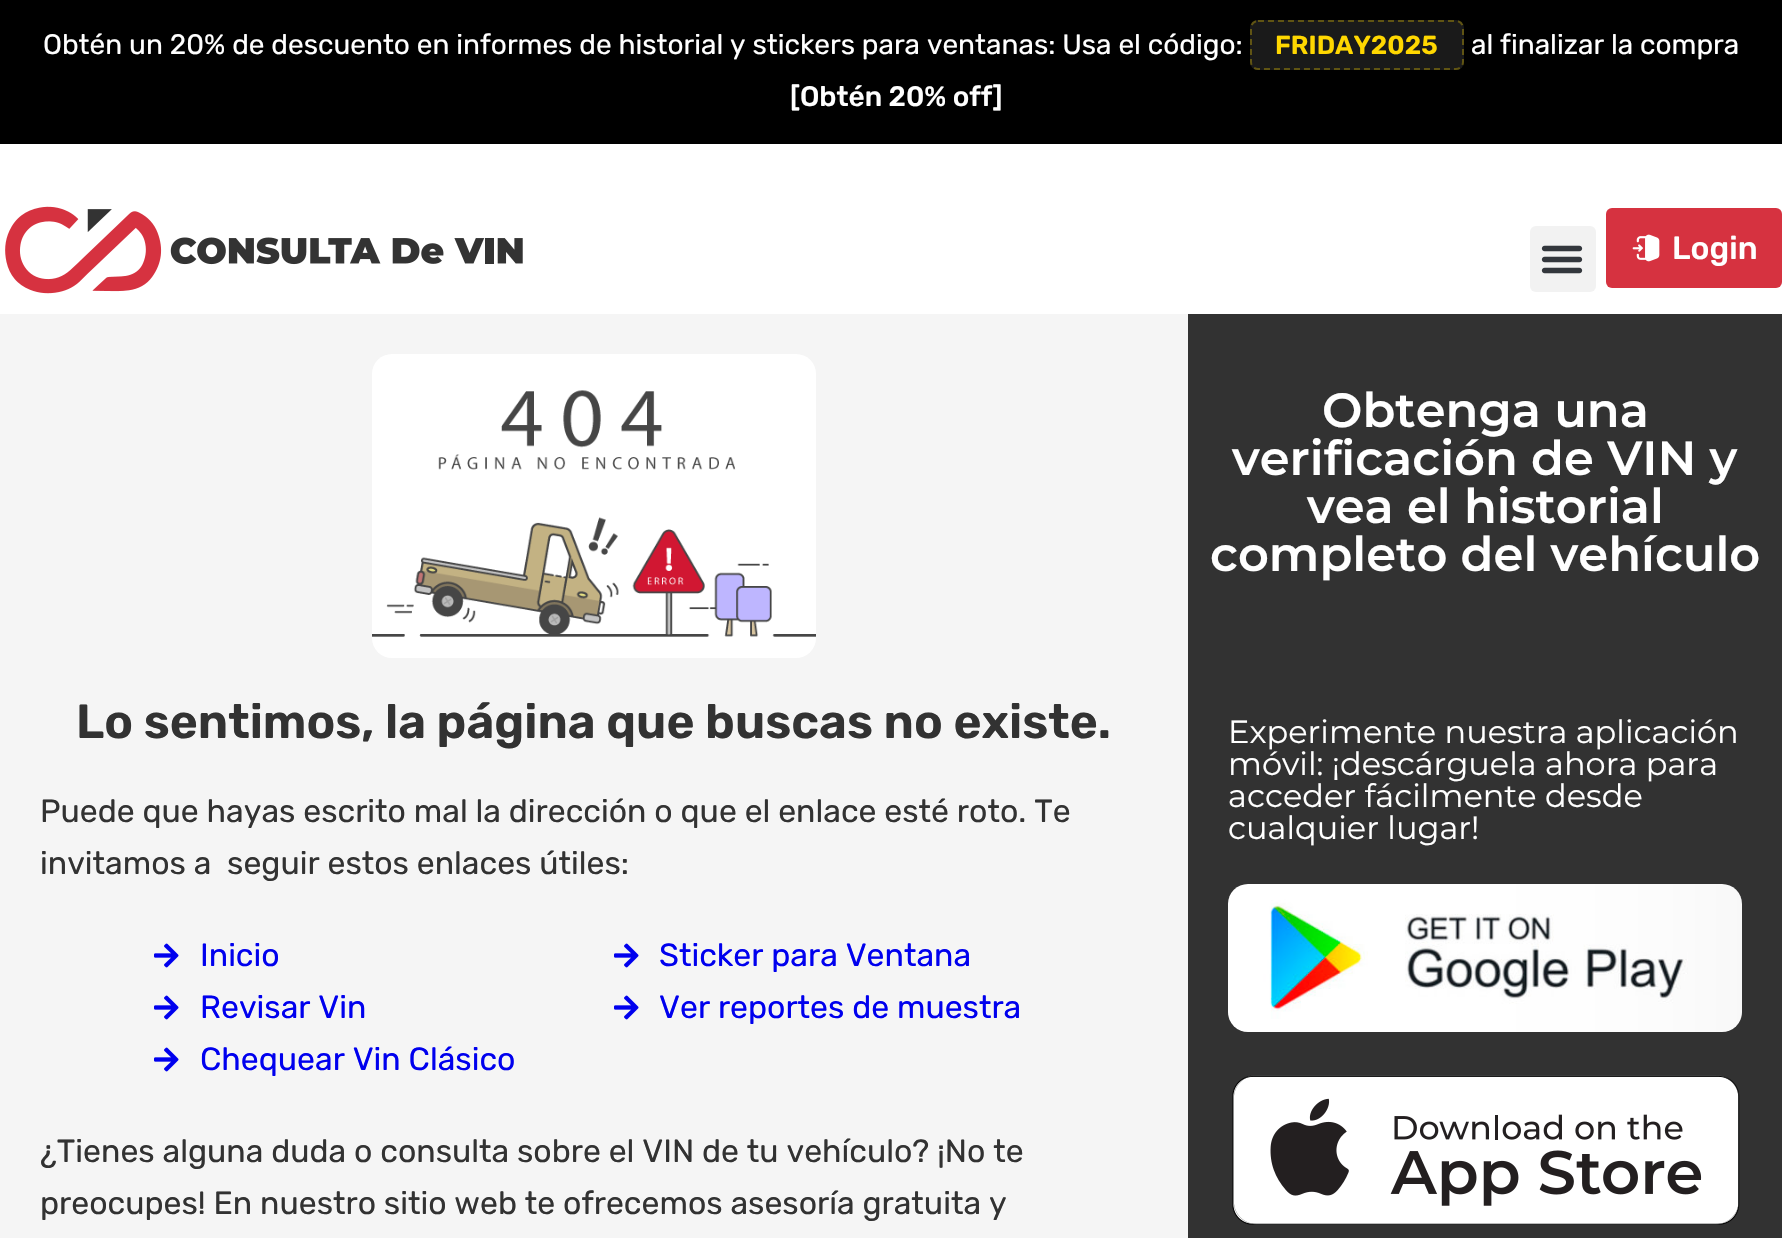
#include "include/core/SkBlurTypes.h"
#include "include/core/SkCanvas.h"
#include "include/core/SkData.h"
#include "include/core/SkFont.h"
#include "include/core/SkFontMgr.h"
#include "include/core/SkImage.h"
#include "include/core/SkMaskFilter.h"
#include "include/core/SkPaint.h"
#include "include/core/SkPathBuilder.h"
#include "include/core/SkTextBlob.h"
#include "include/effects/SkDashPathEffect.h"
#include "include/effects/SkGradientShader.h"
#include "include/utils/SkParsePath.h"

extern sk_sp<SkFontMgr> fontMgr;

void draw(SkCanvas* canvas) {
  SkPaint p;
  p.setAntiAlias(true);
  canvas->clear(SkColorSetRGB(245, 245, 245));
  p.setColor(SK_ColorWHITE);
  canvas->drawRect(SkRect::MakeLTRB(0, 144, 1782, 314), p);
  p.setColor(SK_ColorBLACK);
  canvas->drawRect(SkRect::MakeLTRB(0, 0, 1782, 144), p);
  p.setColor(SkColorSetRGB(26, 26, 26));
  canvas->drawRoundRect(SkRect::MakeLTRB(1250, 20, 1464, 70), 8, 8, p);
  p.setStyle(SkPaint::kStroke_Style);
  p.setStrokeWidth(2);
  p.setColor(SkColorSetARGB(77, 255, 215, 0));
  p.setPathEffect(SkDashPathEffect::Make({{6, 4}}, 0));
  canvas->drawPath(SkPathBuilder().moveTo(1258, 21).lineTo(1456, 21).cubicTo(1460, 21, 1463, 24, 1463, 28).lineTo(1463, 62).cubicTo(1463, 66, 1460, 69, 1456, 69).lineTo(1258, 69).cubicTo(1254, 69, 1251, 66, 1251, 62).lineTo(1251, 28).cubicTo(1251, 24, 1254, 21, 1258, 21).close().detach(), p);
  p.setPathEffect(nullptr);
  canvas->drawImageRect(SkImages::DeferredFromEncodedData(SkData::MakeFromFileName("images/1.png")), SkRect::MakeLTRB(5, 206, 523, 294), SkSamplingOptions());
  p.setStyle(SkPaint::kFill_Style);
  p.setColor(SkColorSetRGB(242, 242, 242));
  canvas->drawRoundRect(SkRect::MakeLTRB(1530, 226, 1596, 292), 6, 6, p);
  canvas->drawImageRect(SkImages::DeferredFromEncodedData(SkData::MakeFromFileName("images/2.png")), SkRect::MakeLTRB(1541, 245, 1583, 274), SkSamplingOptions());
  p.setColor(SkColorSetRGB(214, 50, 64));
  canvas->drawRoundRect(SkRect::MakeLTRB(1606, 208, 1782, 288), 6, 6, p);
  canvas->drawImageRect(SkImages::DeferredFromEncodedData(SkData::MakeFromFileName("images/3.png")), SkRect::MakeLTRB(1632, 234, 1660, 262), SkSamplingOptions());
  p.setColor(SkColorSetRGB(50, 50, 50));
  canvas->drawRect(SkRect::MakeLTRB(1188, 314, 1782, 1238), p);
  canvas->drawImageRect(SkImages::DeferredFromEncodedData(SkData::MakeFromFileName("images/4.png")), SkRect::MakeLTRB(1228, 884, 1742, 1032), SkSamplingOptions());
  canvas->drawImageRect(SkImages::DeferredFromEncodedData(SkData::MakeFromFileName("images/5.png")), SkRect::MakeLTRB(1232, 1075, 1740, 1225), SkSamplingOptions());
  canvas->drawImageRect(SkImages::DeferredFromEncodedData(SkData::MakeFromFileName("images/6.png")), SkRect::MakeLTRB(372, 354, 816, 658), SkSamplingOptions());
  canvas->drawImageRect(SkImages::DeferredFromEncodedData(SkData::MakeFromFileName("images/7.png")), SkRect::MakeLTRB(154, 943, 179, 968), SkSamplingOptions());
  canvas->drawImageRect(SkImages::DeferredFromEncodedData(SkData::MakeFromFileName("images/7.png")), SkRect::MakeLTRB(154, 995, 179, 1020), SkSamplingOptions());
  canvas->drawImageRect(SkImages::DeferredFromEncodedData(SkData::MakeFromFileName("images/7.png")), SkRect::MakeLTRB(154, 1047, 179, 1072), SkSamplingOptions());
  canvas->drawImageRect(SkImages::DeferredFromEncodedData(SkData::MakeFromFileName("images/7.png")), SkRect::MakeLTRB(614, 943, 639, 968), SkSamplingOptions());
  canvas->drawImageRect(SkImages::DeferredFromEncodedData(SkData::MakeFromFileName("images/7.png")), SkRect::MakeLTRB(614, 995, 639, 1020), SkSamplingOptions());
  SkFont font1(fontMgr->matchFamilyStyle("Rubik", SkFontStyle::Normal()), 28);
  font1.setSubpixel(true);
  p.setColor(SK_ColorWHITE);
  canvas->drawString("Obtén un 20% de descuento en informes de historial y stickers para ventanas: Usa el código:", 43, 54, font1, p);
  SkFont font2(fontMgr->matchFamilyStyle("Rubik", SkFontStyle(600, SkFontStyle::kNormal_Width, SkFontStyle::kUpright_Slant)), 26);
  font2.setSubpixel(true);
  p.setColor(SkColorSetRGB(255, 215, 0));
  canvas->drawString("FRIDAY2025", 1275, 54, font2, p);
  p.setColor(SK_ColorWHITE);
  canvas->drawString("al finalizar la compra", 1471, 54, font1, p);
  SkFont font3(fontMgr->matchFamilyStyle("Rubik", SkFontStyle(500, SkFontStyle::kNormal_Width, SkFontStyle::kUpright_Slant)), 28);
  font3.setSubpixel(true);
  canvas->drawString("[Obtén 20% off]", 790, 106, font3, p);
  SkFont font4(fontMgr->matchFamilyStyle("Rubik", SkFontStyle(500, SkFontStyle::kNormal_Width, SkFontStyle::kUpright_Slant)), 32);
  font4.setSubpixel(true);
  canvas->drawString("Login", 1672, 259, font4, p);
  SkFont font5(fontMgr->matchFamilyStyle("Montserrat", SkFontStyle(600, SkFontStyle::kNormal_Width, SkFontStyle::kUpright_Slant)), 48);
  font5.setSubpixel(true);
  canvas->drawString("Obtenga una", 1322, 427, font5, p);
  canvas->drawString("verificación de VIN y", 1232, 475, font5, p);
  canvas->drawString("vea el historial", 1307, 523, font5, p);
  canvas->drawString("completo del vehículo", 1210, 571, font5, p);
  SkFont font6(fontMgr->matchFamilyStyle("Montserrat", SkFontStyle::Normal()), 32);
  font6.setSubpixel(true);
  canvas->drawString("Experimente nuestra aplicación", 1228, 743, font6, p);
  canvas->drawString("móvil: ¡descárguela ahora para", 1228, 775, font6, p);
  canvas->drawString("acceder fácilmente desde", 1228, 807, font6, p);
  canvas->drawString("cualquier lugar!", 1228, 839, font6, p);
  SkFont font7(fontMgr->matchFamilyStyle("Rubik", SkFontStyle(600, SkFontStyle::kNormal_Width, SkFontStyle::kUpright_Slant)), 48);
  font7.setSubpixel(true);
  p.setColor(SkColorSetRGB(50, 50, 50));
  canvas->drawString("Lo sentimos, la página que buscas no existe.", 76, 738, font7, p);
  SkFont font8(fontMgr->matchFamilyStyle("Rubik", SkFontStyle::Normal()), 32);
  font8.setSubpixel(true);
  canvas->drawString("Puede que hayas escrito mal la dirección o que el enlace esté roto. Te", 40, 822, font8, p);
  canvas->drawString("invitamos a  seguir estos enlaces útiles:", 40, 874, font8, p);
  p.setColor(SkColorSetRGB(0, 0, 238));
  canvas->drawString("Inicio", 200, 966, font8, p);
  canvas->drawString("Revisar Vin", 200, 1018, font8, p);
  canvas->drawString("Chequear Vin Clásico", 200, 1070, font8, p);
  canvas->drawString("Sticker para Ventana", 659, 966, font8, p);
  canvas->drawString("Ver reportes de muestra", 659, 1018, font8, p);
  p.setColor(SkColorSetRGB(50, 50, 50));
  canvas->drawString("¿Tienes alguna duda o consulta sobre el VIN de tu vehículo? ¡No te", 40, 1162, font8, p);
  canvas->drawString("preocupes! En nuestro sitio web te ofrecemos asesoría gratuita y", 40, 1214, font8, p);
}
